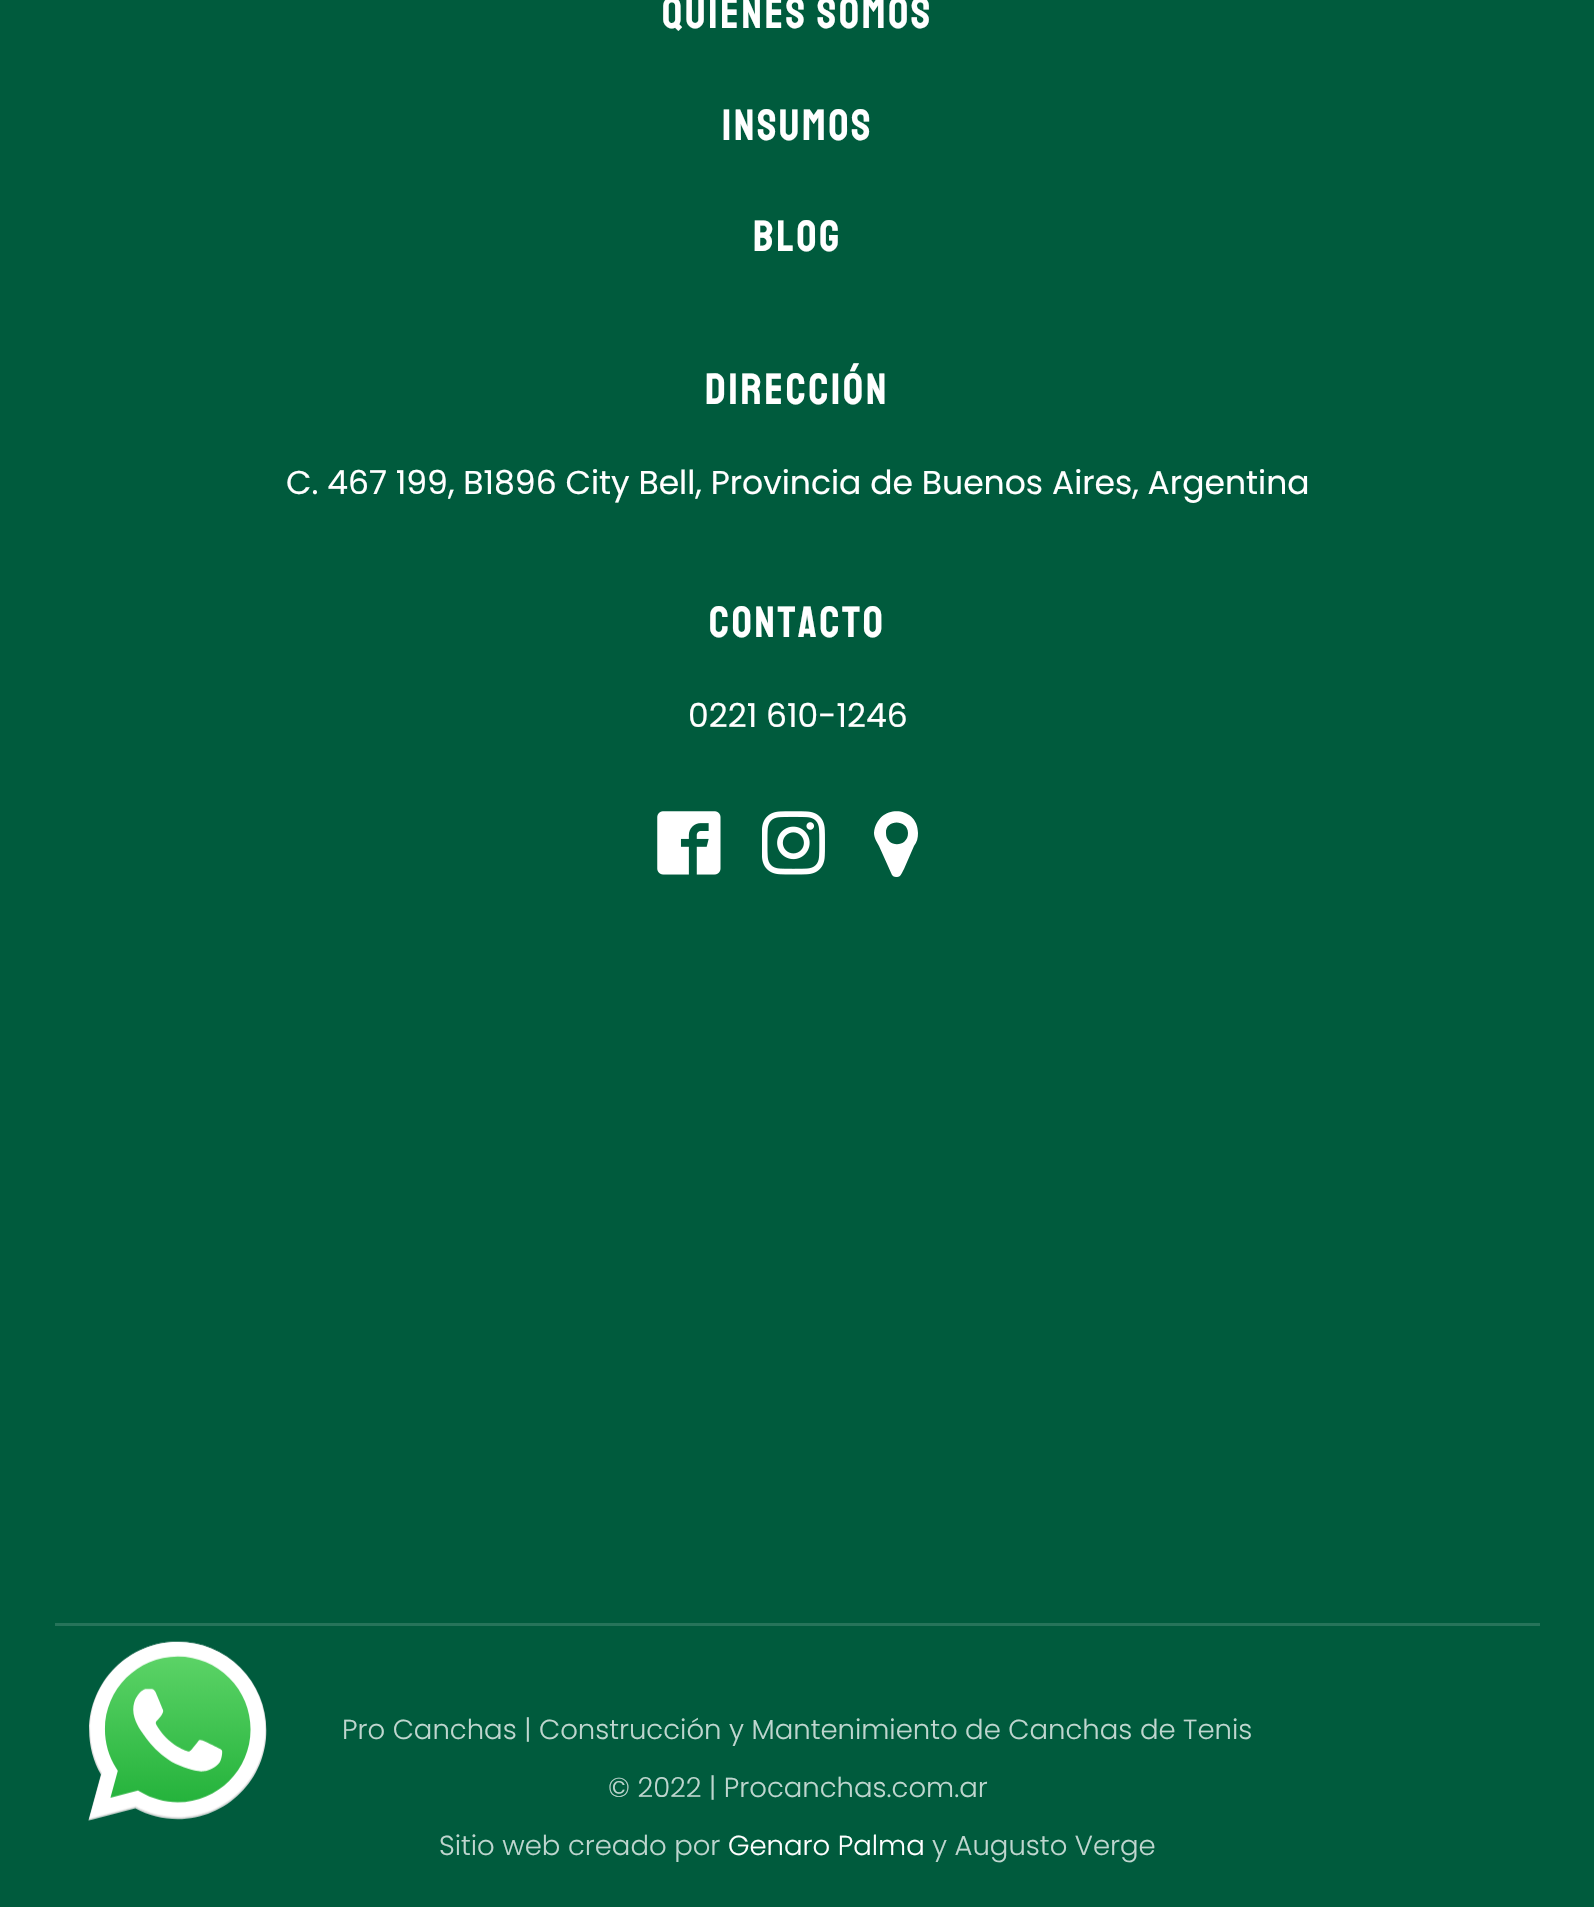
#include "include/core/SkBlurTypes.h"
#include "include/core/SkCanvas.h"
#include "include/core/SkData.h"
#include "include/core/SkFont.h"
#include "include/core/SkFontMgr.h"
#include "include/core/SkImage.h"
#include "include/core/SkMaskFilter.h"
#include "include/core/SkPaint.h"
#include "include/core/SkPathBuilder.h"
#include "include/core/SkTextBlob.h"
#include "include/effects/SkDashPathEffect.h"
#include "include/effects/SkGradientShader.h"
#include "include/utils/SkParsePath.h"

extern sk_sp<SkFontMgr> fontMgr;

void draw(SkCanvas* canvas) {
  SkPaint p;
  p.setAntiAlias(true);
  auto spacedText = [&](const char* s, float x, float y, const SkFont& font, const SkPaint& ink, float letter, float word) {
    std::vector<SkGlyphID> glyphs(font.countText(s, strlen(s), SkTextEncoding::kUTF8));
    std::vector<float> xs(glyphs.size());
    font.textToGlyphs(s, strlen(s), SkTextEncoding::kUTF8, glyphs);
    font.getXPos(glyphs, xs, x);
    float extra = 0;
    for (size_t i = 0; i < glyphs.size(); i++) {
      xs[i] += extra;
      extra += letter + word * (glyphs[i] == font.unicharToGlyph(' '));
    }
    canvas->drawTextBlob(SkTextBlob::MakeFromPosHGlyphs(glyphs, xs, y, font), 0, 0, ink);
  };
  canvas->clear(SkColorSetRGB(0, 91, 61));
  canvas->drawImageRect(SkImages::DeferredFromEncodedData(SkData::MakeFromFileName("images/1.png")), SkRect::MakeLTRB(88, 1641, 267, 1821), SkSamplingOptions());
  canvas->drawImageRect(SkImages::DeferredFromEncodedData(SkData::MakeFromFileName("images/2.png")), SkRect::MakeLTRB(657, 811, 721, 875), SkSamplingOptions());
  canvas->drawImageRect(SkImages::DeferredFromEncodedData(SkData::MakeFromFileName("images/3.png")), SkRect::MakeLTRB(762, 811, 825, 875), SkSamplingOptions());
  p.setColor(SK_ColorWHITE);
  canvas->drawPath(SkPathBuilder().moveTo(908, 833).cubicTo(908, 819, 885, 819, 886, 833).cubicTo(886, 848, 908, 848, 908, 833).close().moveTo(918, 833).cubicTo(918, 838, 917, 842, 914, 846).lineTo(904, 869).cubicTo(902, 872, 901, 878, 896, 877).cubicTo(894, 877, 893, 876, 892, 875).lineTo(879, 846).cubicTo(877, 842, 874, 838, 874, 833).cubicTo(877, 803, 918, 805, 918, 833).close().detach(), p);
  p.setColor(SkColorSetRGB(38, 116, 90));
  canvas->drawRect(SkRect::MakeLTRB(55, 1623, 1540, 1626), p);
  SkFont font1(fontMgr->matchFamilyStyle("Staatliches", SkFontStyle::Normal()), 44);
  font1.setSubpixel(true);
  p.setColor(SK_ColorWHITE);
  spacedText("Quienes somos", 662, 28, font1, p, 2.75f, 0);
  spacedText("Insumos", 722, 140, font1, p, 2.75f, 0);
  spacedText("Blog", 753, 251, font1, p, 2.75f, 0);
  spacedText("Dirección", 705, 404, font1, p, 2.75f, 0);
  SkFont font2(fontMgr->matchFamilyStyle("Poppins", SkFontStyle::Normal()), 33);
  font2.setSubpixel(true);
  canvas->drawString("C. 467 199, B1896 City Bell, Provincia de Buenos Aires, Argentina", 286, 494, font2, p);
  spacedText("Contacto", 709, 637, font1, p, 2.75f, 0);
  canvas->drawString("0221 610-1246", 688, 727, font2, p);
  SkFont font3(fontMgr->matchFamilyStyle("Poppins", SkFontStyle(300, SkFontStyle::kNormal_Width, SkFontStyle::kUpright_Slant)), 27.5f);
  font3.setSubpixel(true);
  p.setColor(SkColorSetRGB(191, 214, 207));
  canvas->drawString("Pro Canchas | Construcción y Mantenimiento de Canchas de Tenis", 342, 1739, font3, p);
  canvas->drawString("© 2022 | Procanchas.com.ar", 608, 1797, font3, p);
  canvas->drawString("Sitio web creado por", 439, 1855, font3, p);
  p.setColor(SK_ColorWHITE);
  canvas->drawString("Genaro Palma", 728, 1855, font3, p);
  p.setColor(SkColorSetRGB(191, 214, 207));
  canvas->drawString("y Augusto Verge", 932, 1855, font3, p);
}
